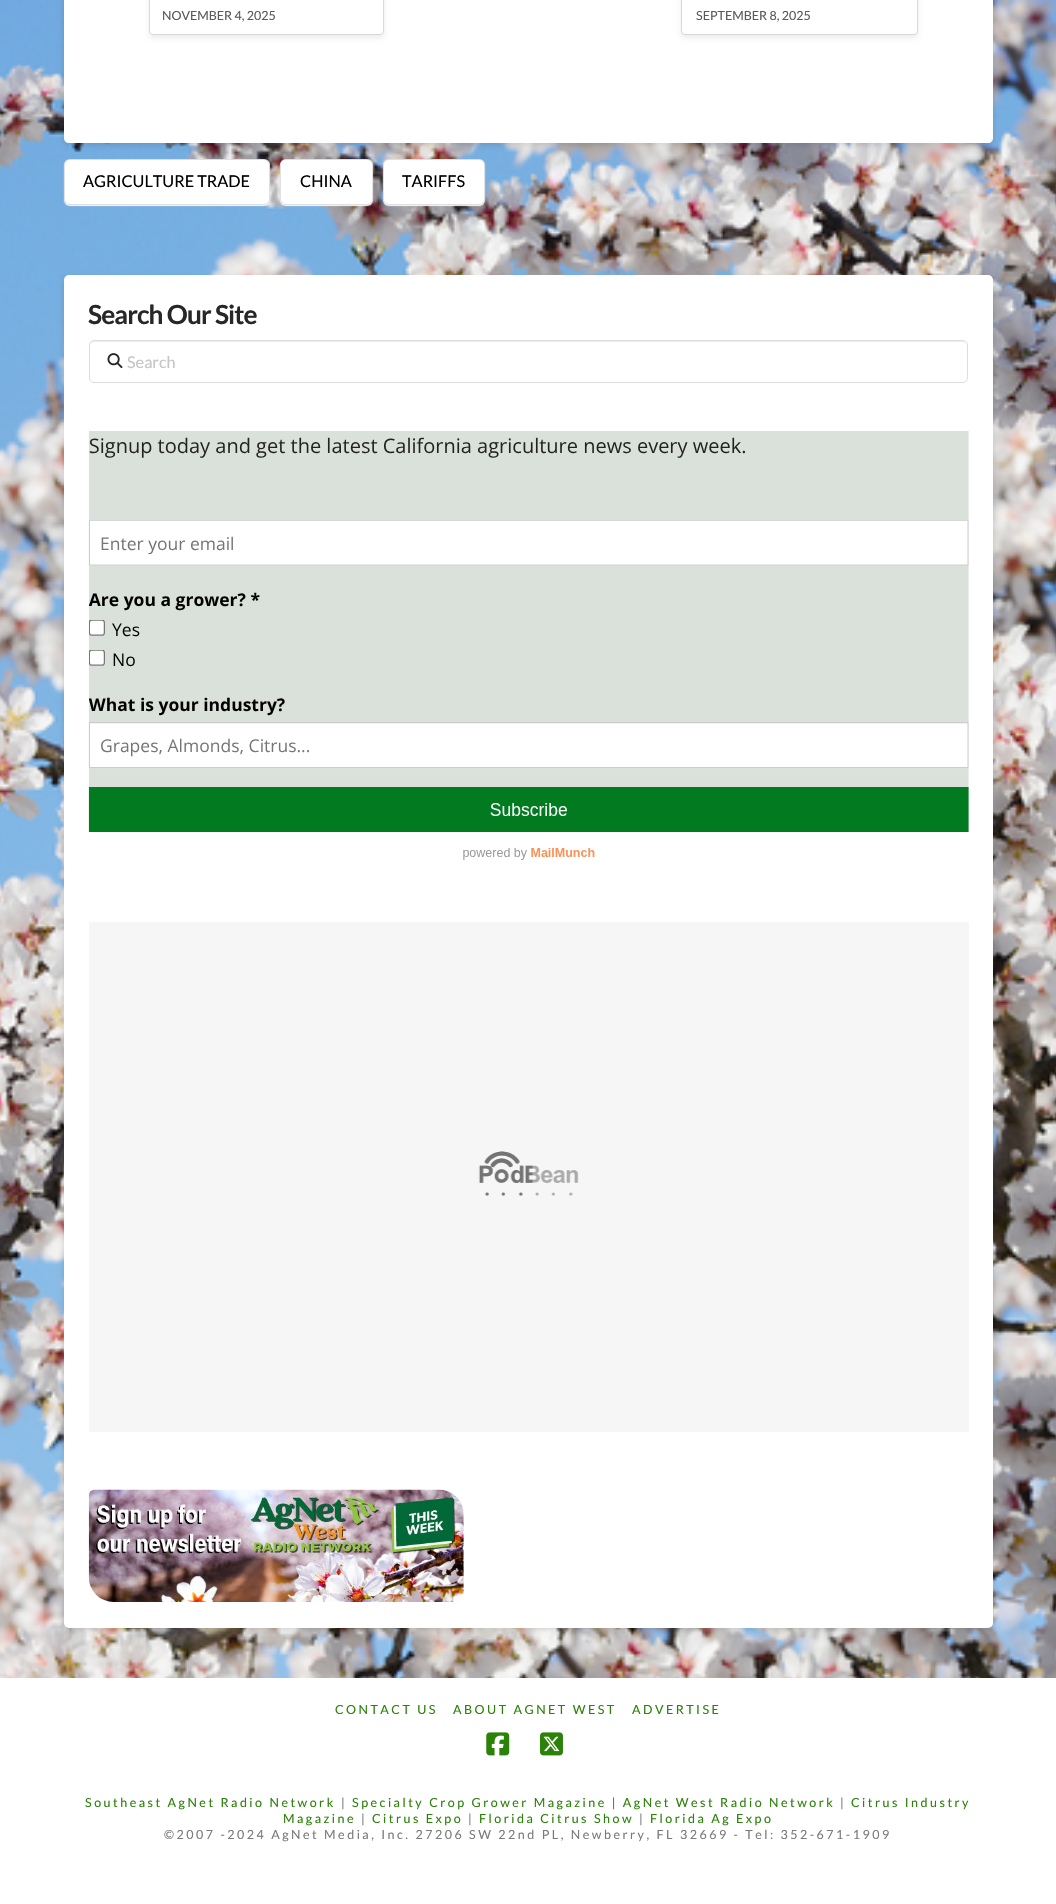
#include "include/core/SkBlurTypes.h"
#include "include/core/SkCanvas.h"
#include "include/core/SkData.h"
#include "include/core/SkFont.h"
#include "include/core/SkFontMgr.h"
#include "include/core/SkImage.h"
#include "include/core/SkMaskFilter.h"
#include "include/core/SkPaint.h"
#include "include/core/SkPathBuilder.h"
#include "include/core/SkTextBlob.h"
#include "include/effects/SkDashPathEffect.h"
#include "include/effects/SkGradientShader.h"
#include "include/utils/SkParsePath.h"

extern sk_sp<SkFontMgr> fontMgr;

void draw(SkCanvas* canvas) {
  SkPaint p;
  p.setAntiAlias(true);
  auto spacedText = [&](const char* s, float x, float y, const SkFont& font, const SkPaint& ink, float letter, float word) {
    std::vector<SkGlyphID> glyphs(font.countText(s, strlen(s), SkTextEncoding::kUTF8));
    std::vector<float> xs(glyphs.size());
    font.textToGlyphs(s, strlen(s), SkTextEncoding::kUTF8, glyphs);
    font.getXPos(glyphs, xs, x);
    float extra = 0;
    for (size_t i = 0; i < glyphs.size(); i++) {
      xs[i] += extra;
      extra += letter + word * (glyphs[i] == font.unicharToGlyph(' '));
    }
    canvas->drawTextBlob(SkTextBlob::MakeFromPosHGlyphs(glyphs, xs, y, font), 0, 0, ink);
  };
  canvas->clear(SK_ColorWHITE);
  canvas->drawImageRect(SkImages::DeferredFromEncodedData(SkData::MakeFromFileName("images/1.png")), SkRect::MakeLTRB(0, 0, 1056, 1678), SkSamplingOptions());
  p.setColor(SkColorSetARGB(33, 0, 0, 0));
  p.setMaskFilter(SkMaskFilter::MakeBlur(kNormal_SkBlurStyle, 3));
  canvas->drawRoundRect(SkRect::MakeLTRB(64, -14, 993, 145), 5, 5, p);
  p.setMaskFilter(nullptr);
  p.setColor(SK_ColorWHITE);
  canvas->drawPath(SkPathBuilder().moveTo(64, -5).lineTo(993, -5).lineTo(993, 138).cubicTo(993, 141, 991, 143, 988, 143).lineTo(69, 143).cubicTo(66, 143, 64, 141, 64, 138).close().detach(), p);
  p.setColor(SkColorSetARGB(18, 0, 0, 0));
  p.setMaskFilter(SkMaskFilter::MakeBlur(kNormal_SkBlurStyle, 2.5f));
  canvas->drawRoundRect(SkRect::MakeLTRB(149, -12, 384, 38), 4, 4, p);
  p.setMaskFilter(nullptr);
  p.setColor(SK_ColorWHITE);
  canvas->drawRoundRect(SkRect::MakeLTRB(149.5f, -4.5f, 383.5f, 34.5f), 3.5f, 3.5f, p);
  p.setStyle(SkPaint::kStroke_Style);
  p.setStrokeWidth(1);
  p.setColor(SkColorSetRGB(217, 217, 217));
  canvas->drawRoundRect(SkRect::MakeLTRB(149.5f, -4.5f, 383.5f, 34.5f), 3.5f, 3.5f, p);
  p.setStyle(SkPaint::kFill_Style);
  p.setColor(SkColorSetARGB(18, 0, 0, 0));
  p.setMaskFilter(SkMaskFilter::MakeBlur(kNormal_SkBlurStyle, 2.5f));
  canvas->drawRoundRect(SkRect::MakeLTRB(681, -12, 918, 38), 4, 4, p);
  p.setMaskFilter(nullptr);
  p.setColor(SK_ColorWHITE);
  canvas->drawRoundRect(SkRect::MakeLTRB(681.5f, -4.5f, 917.5f, 34.5f), 3.5f, 3.5f, p);
  p.setStyle(SkPaint::kStroke_Style);
  p.setColor(SkColorSetRGB(217, 217, 217));
  canvas->drawRoundRect(SkRect::MakeLTRB(681.5f, -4.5f, 917.5f, 34.5f), 3.5f, 3.5f, p);
  p.setStyle(SkPaint::kFill_Style);
  p.setColor(SkColorSetARGB(242, 255, 255, 255));
  p.setMaskFilter(SkMaskFilter::MakeBlur(kNormal_SkBlurStyle, 0.5f));
  canvas->drawRoundRect(SkRect::MakeLTRB(64, 160, 270, 206), 6, 6, p);
  p.setMaskFilter(nullptr);
  p.setColor(SK_ColorWHITE);
  canvas->drawRoundRect(SkRect::MakeLTRB(64, 159, 270, 205), 6, 6, p);
  p.setStyle(SkPaint::kStroke_Style);
  p.setColor(SkColorSetARGB(31, 0, 0, 0));
  canvas->drawRoundRect(SkRect::MakeLTRB(64.5f, 159.5f, 269.5f, 204.5f), 5.5f, 5.5f, p);
  p.setStyle(SkPaint::kFill_Style);
  p.setColor(SkColorSetARGB(242, 255, 255, 255));
  p.setMaskFilter(SkMaskFilter::MakeBlur(kNormal_SkBlurStyle, 0.5f));
  canvas->drawRoundRect(SkRect::MakeLTRB(280, 160, 373, 206), 6, 6, p);
  p.setMaskFilter(nullptr);
  p.setColor(SK_ColorWHITE);
  canvas->drawRoundRect(SkRect::MakeLTRB(280, 159, 373, 205), 6, 6, p);
  p.setStyle(SkPaint::kStroke_Style);
  p.setColor(SkColorSetARGB(31, 0, 0, 0));
  canvas->drawRoundRect(SkRect::MakeLTRB(280.5f, 159.5f, 372.5f, 204.5f), 5.5f, 5.5f, p);
  p.setStyle(SkPaint::kFill_Style);
  p.setColor(SkColorSetARGB(242, 255, 255, 255));
  p.setMaskFilter(SkMaskFilter::MakeBlur(kNormal_SkBlurStyle, 0.5f));
  canvas->drawRoundRect(SkRect::MakeLTRB(383, 160, 485, 206), 6, 6, p);
  p.setMaskFilter(nullptr);
  p.setColor(SK_ColorWHITE);
  canvas->drawRoundRect(SkRect::MakeLTRB(383, 159, 485, 205), 6, 6, p);
  p.setStyle(SkPaint::kStroke_Style);
  p.setColor(SkColorSetARGB(31, 0, 0, 0));
  canvas->drawRoundRect(SkRect::MakeLTRB(383.5f, 159.5f, 484.5f, 204.5f), 5.5f, 5.5f, p);
  p.setStyle(SkPaint::kFill_Style);
  p.setColor(SkColorSetARGB(33, 0, 0, 0));
  p.setMaskFilter(SkMaskFilter::MakeBlur(kNormal_SkBlurStyle, 3));
  canvas->drawRoundRect(SkRect::MakeLTRB(64, 278, 993, 1630), 5, 5, p);
  p.setMaskFilter(nullptr);
  p.setColor(SK_ColorWHITE);
  canvas->drawRoundRect(SkRect::MakeLTRB(64, 275, 993, 1628), 5, 5, p);
  p.setColor(SkColorSetRGB(236, 236, 236));
  canvas->drawPath(SkPathBuilder().moveTo(94, 342).lineTo(962, 342).cubicTo(965, 342, 966, 344, 966, 346).cubicTo(966, 343, 965, 341, 962, 341).lineTo(94, 341).cubicTo(91, 341, 90, 343, 90, 346).cubicTo(90, 344, 92, 342, 94, 342).close().detach(), p);
  p.setStyle(SkPaint::kStroke_Style);
  p.setColor(SkColorSetRGB(221, 221, 221));
  canvas->drawRoundRect(SkRect::MakeLTRB(89.5f, 340.5f, 967.5f, 382.5f), 4.5f, 4.5f, p);
  canvas->drawImageRect(SkImages::DeferredFromEncodedData(SkData::MakeFromFileName("images/2.png")), SkRect::MakeLTRB(107, 353, 123, 369), SkSamplingOptions());
  canvas->drawImageRect(SkImages::DeferredFromEncodedData(SkData::MakeFromFileName("images/3.png")), SkRect::MakeLTRB(88, 431, 969, 860), SkSamplingOptions());
  canvas->drawImageRect(SkImages::DeferredFromEncodedData(SkData::MakeFromFileName("images/4.png")), SkRect::MakeLTRB(89, 922, 969, 1432), SkSamplingOptions());
  canvas->drawImageRect(SkImages::DeferredFromEncodedData(SkData::MakeFromFileName("images/5.png")), SkRect::MakeLTRB(88, 1489, 464, 1602), SkSamplingOptions());
  canvas->drawImageRect(SkImages::DeferredFromEncodedData(SkData::MakeFromFileName("images/6.png")), SkRect::MakeLTRB(486, 1732, 510, 1756), SkSamplingOptions());
  canvas->drawImageRect(SkImages::DeferredFromEncodedData(SkData::MakeFromFileName("images/7.png")), SkRect::MakeLTRB(540, 1732, 563, 1756), SkSamplingOptions());
  SkFont font1(fontMgr->matchFamilyStyle("Lato", SkFontStyle::Normal()), 12.5f);
  font1.setSubpixel(true);
  p.setStyle(SkPaint::kFill_Style);
  p.setColor(SkColorSetRGB(89, 89, 89));
  canvas->drawString("NOVEMBER 4, 2025", 162, 20, font1, p);
  canvas->drawString("SEPTEMBER 8, 2025", 696, 20, font1, p);
  SkFont font2(fontMgr->matchFamilyStyle("Lato", SkFontStyle::Normal()), 16.25f);
  font2.setSubpixel(true);
  p.setColor(SK_ColorBLACK);
  canvas->drawString("AGRICULTURE TRADE", 83, 187, font2, p);
  canvas->drawString("CHINA", 300, 187, font2, p);
  canvas->drawString("TARIFFS", 402, 187, font2, p);
  SkFont font3(fontMgr->matchFamilyStyle("Lato", SkFontStyle::Bold()), 26.25f);
  font3.setSubpixel(true);
  p.setColor(SkColorSetRGB(39, 39, 39));
  spacedText("Search Our Site", 88, 324, font3, p, -0.9f, 0);
  p.setColor(SkColorSetRGB(197, 197, 197));
  canvas->drawString("Search", 127, 368, font2, p);
  p.setColor(SkColorSetRGB(43, 130, 9));
  spacedText("CONTACT US", 335, 1714, font1, p, 2.5f, 0);
  spacedText("ABOUT AGNET WEST", 453, 1714, font1, p, 2.5f, 0);
  spacedText("ADVERTISE", 632, 1714, font1, p, 2.5f, 0);
  spacedText("Southeast AgNet Radio Network", 85, 1807, font1, p, 2.5f, 0);
  p.setColor(SkColorSetRGB(122, 122, 122));
  spacedText("|", 341, 1807, font1, p, 2.5f, 0);
  p.setColor(SkColorSetRGB(43, 130, 9));
  spacedText("Specialty Crop Grower Magazine | AgNet West Radio Network", 352, 1807, font1, p, 2.5f, 0);
  p.setColor(SkColorSetRGB(122, 122, 122));
  spacedText("|", 840, 1807, font1, p, 2.5f, 0);
  p.setColor(SkColorSetRGB(43, 130, 9));
  spacedText("Citrus Industry", 851, 1807, font1, p, 2.5f, 0);
  spacedText("Magazine", 283, 1823, font1, p, 2.5f, 0);
  p.setColor(SkColorSetRGB(122, 122, 122));
  spacedText("|", 361, 1823, font1, p, 2.5f, 0);
  p.setColor(SkColorSetRGB(43, 130, 9));
  spacedText("Citrus Expo", 372, 1823, font1, p, 2.5f, 0);
  p.setColor(SkColorSetRGB(122, 122, 122));
  spacedText("|", 468, 1823, font1, p, 2.5f, 0);
  p.setColor(SkColorSetRGB(43, 130, 9));
  spacedText("Florida Citrus Show", 479, 1823, font1, p, 2.5f, 0);
  p.setColor(SkColorSetRGB(122, 122, 122));
  spacedText("|", 639, 1823, font1, p, 2.5f, 0);
  p.setColor(SkColorSetRGB(43, 130, 9));
  spacedText("Florida Ag Expo", 650, 1823, font1, p, 2.5f, 0);
  p.setColor(SkColorSetRGB(122, 122, 122));
  spacedText("©2007 -2024 AgNet Media, Inc. 27206 SW 22nd PL, Newberry, FL 32669 - Tel: 352-671-1909", 164, 1839, font1, p, 2.5f, 0);
}
